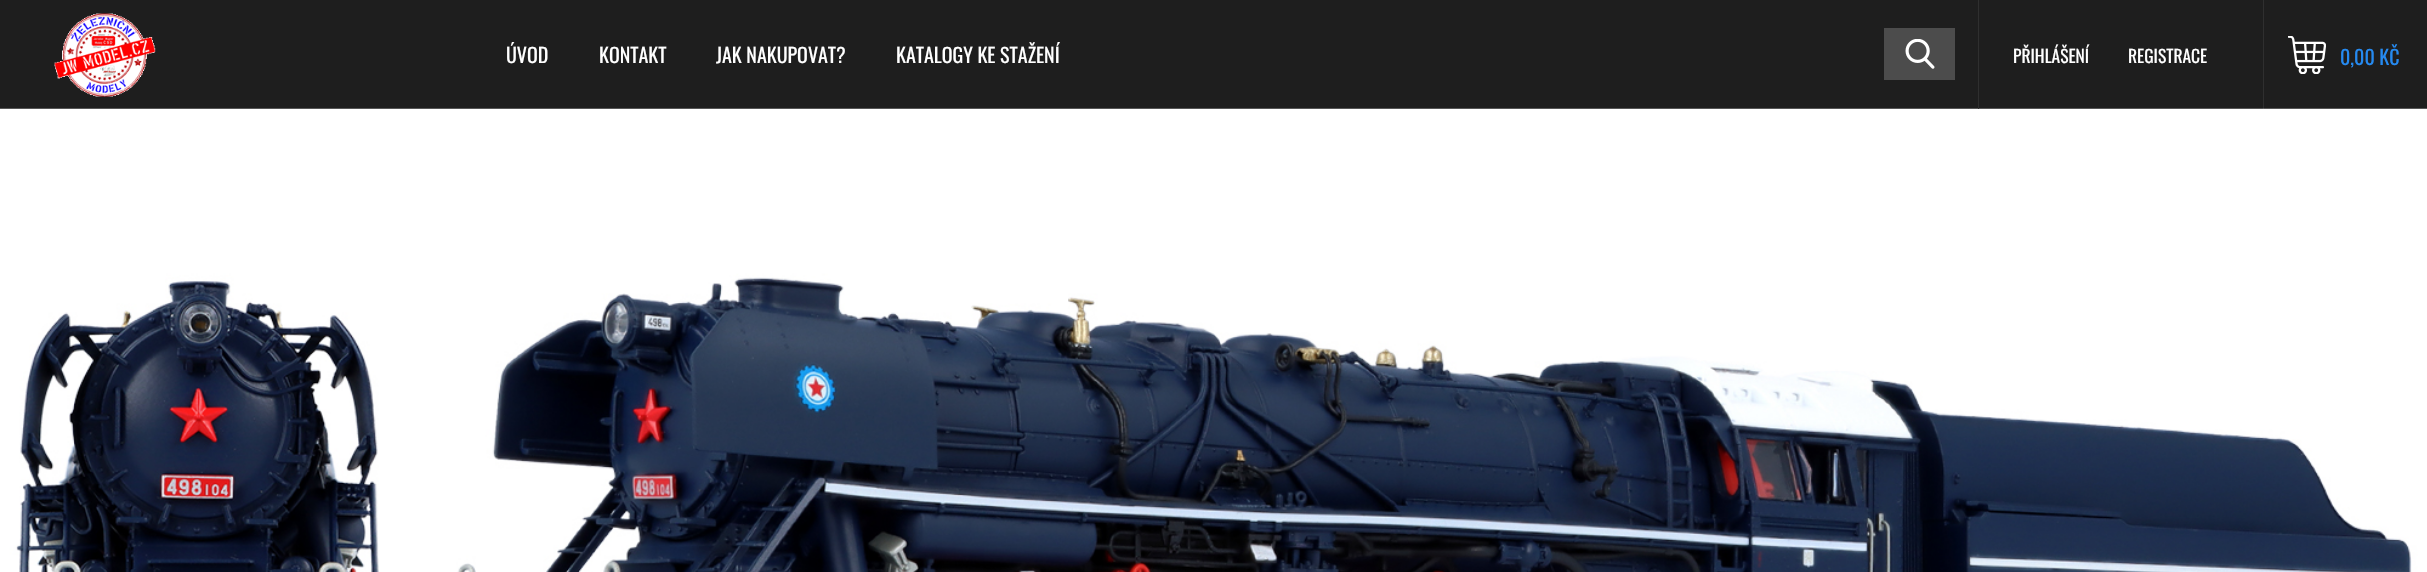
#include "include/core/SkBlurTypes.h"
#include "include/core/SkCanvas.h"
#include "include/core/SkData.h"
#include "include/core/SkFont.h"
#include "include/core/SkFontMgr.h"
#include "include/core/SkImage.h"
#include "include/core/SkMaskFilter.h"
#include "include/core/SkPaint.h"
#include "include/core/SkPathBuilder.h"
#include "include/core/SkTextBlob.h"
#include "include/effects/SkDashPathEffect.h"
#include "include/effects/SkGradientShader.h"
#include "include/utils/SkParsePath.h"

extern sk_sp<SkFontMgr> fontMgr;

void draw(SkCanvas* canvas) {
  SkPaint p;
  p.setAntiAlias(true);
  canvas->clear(SkColorSetRGB(30, 30, 30));
  canvas->drawImageRect(SkImages::DeferredFromEncodedData(SkData::MakeFromFileName("images/1.png")), SkRect::MakeLTRB(54, 13, 156, 97), SkSamplingOptions());
  p.setColor(SkColorSetRGB(47, 47, 47));
  canvas->drawRect(SkRect::MakeLTRB(2263, 0, 2264, 109), p);
  canvas->drawImageRect(SkImages::DeferredFromEncodedData(SkData::MakeFromFileName("images/4.png")), SkRect::MakeLTRB(0, 108, 2427, 572), SkSamplingOptions());
  canvas->drawRect(SkRect::MakeLTRB(1978, 0, 1979, 109), p);
  p.setColor(SkColorSetRGB(76, 76, 76));
  canvas->drawRect(SkRect::MakeLTRB(1884, 28, 1955, 80), p);
  canvas->drawImageRect(SkImages::DeferredFromEncodedData(SkData::MakeFromFileName("images/2.png")), SkRect::MakeLTRB(1905, 39, 1935, 69), SkSamplingOptions());
  canvas->drawImageRect(SkImages::DeferredFromEncodedData(SkData::MakeFromFileName("images/3.png")), SkRect::MakeLTRB(2288, 36, 2326, 74), SkSamplingOptions());
  SkFont font1(fontMgr->matchFamilyStyle("Oswald", SkFontStyle::Normal()), 20);
  font1.setSubpixel(true);
  p.setColor(SK_ColorWHITE);
  canvas->drawString("ÚVOD", 506, 63, font1, p);
  canvas->drawString("KONTAKT", 599, 63, font1, p);
  canvas->drawString("JAK NAKUPOVAT?", 716, 63, font1, p);
  canvas->drawString("KATALOGY KE STAŽENÍ", 896, 63, font1, p);
  SkFont font2(fontMgr->matchFamilyStyle("Oswald", SkFontStyle::Normal()), 17.5f);
  font2.setSubpixel(true);
  canvas->drawString("PŘIHLÁŠENÍ", 2013, 63, font2, p);
  canvas->drawString("REGISTRACE", 2128, 63, font2, p);
  p.setColor(SkColorSetRGB(37, 138, 241));
  canvas->drawString("0,00 KČ", 2340, 65, font1, p);
}
